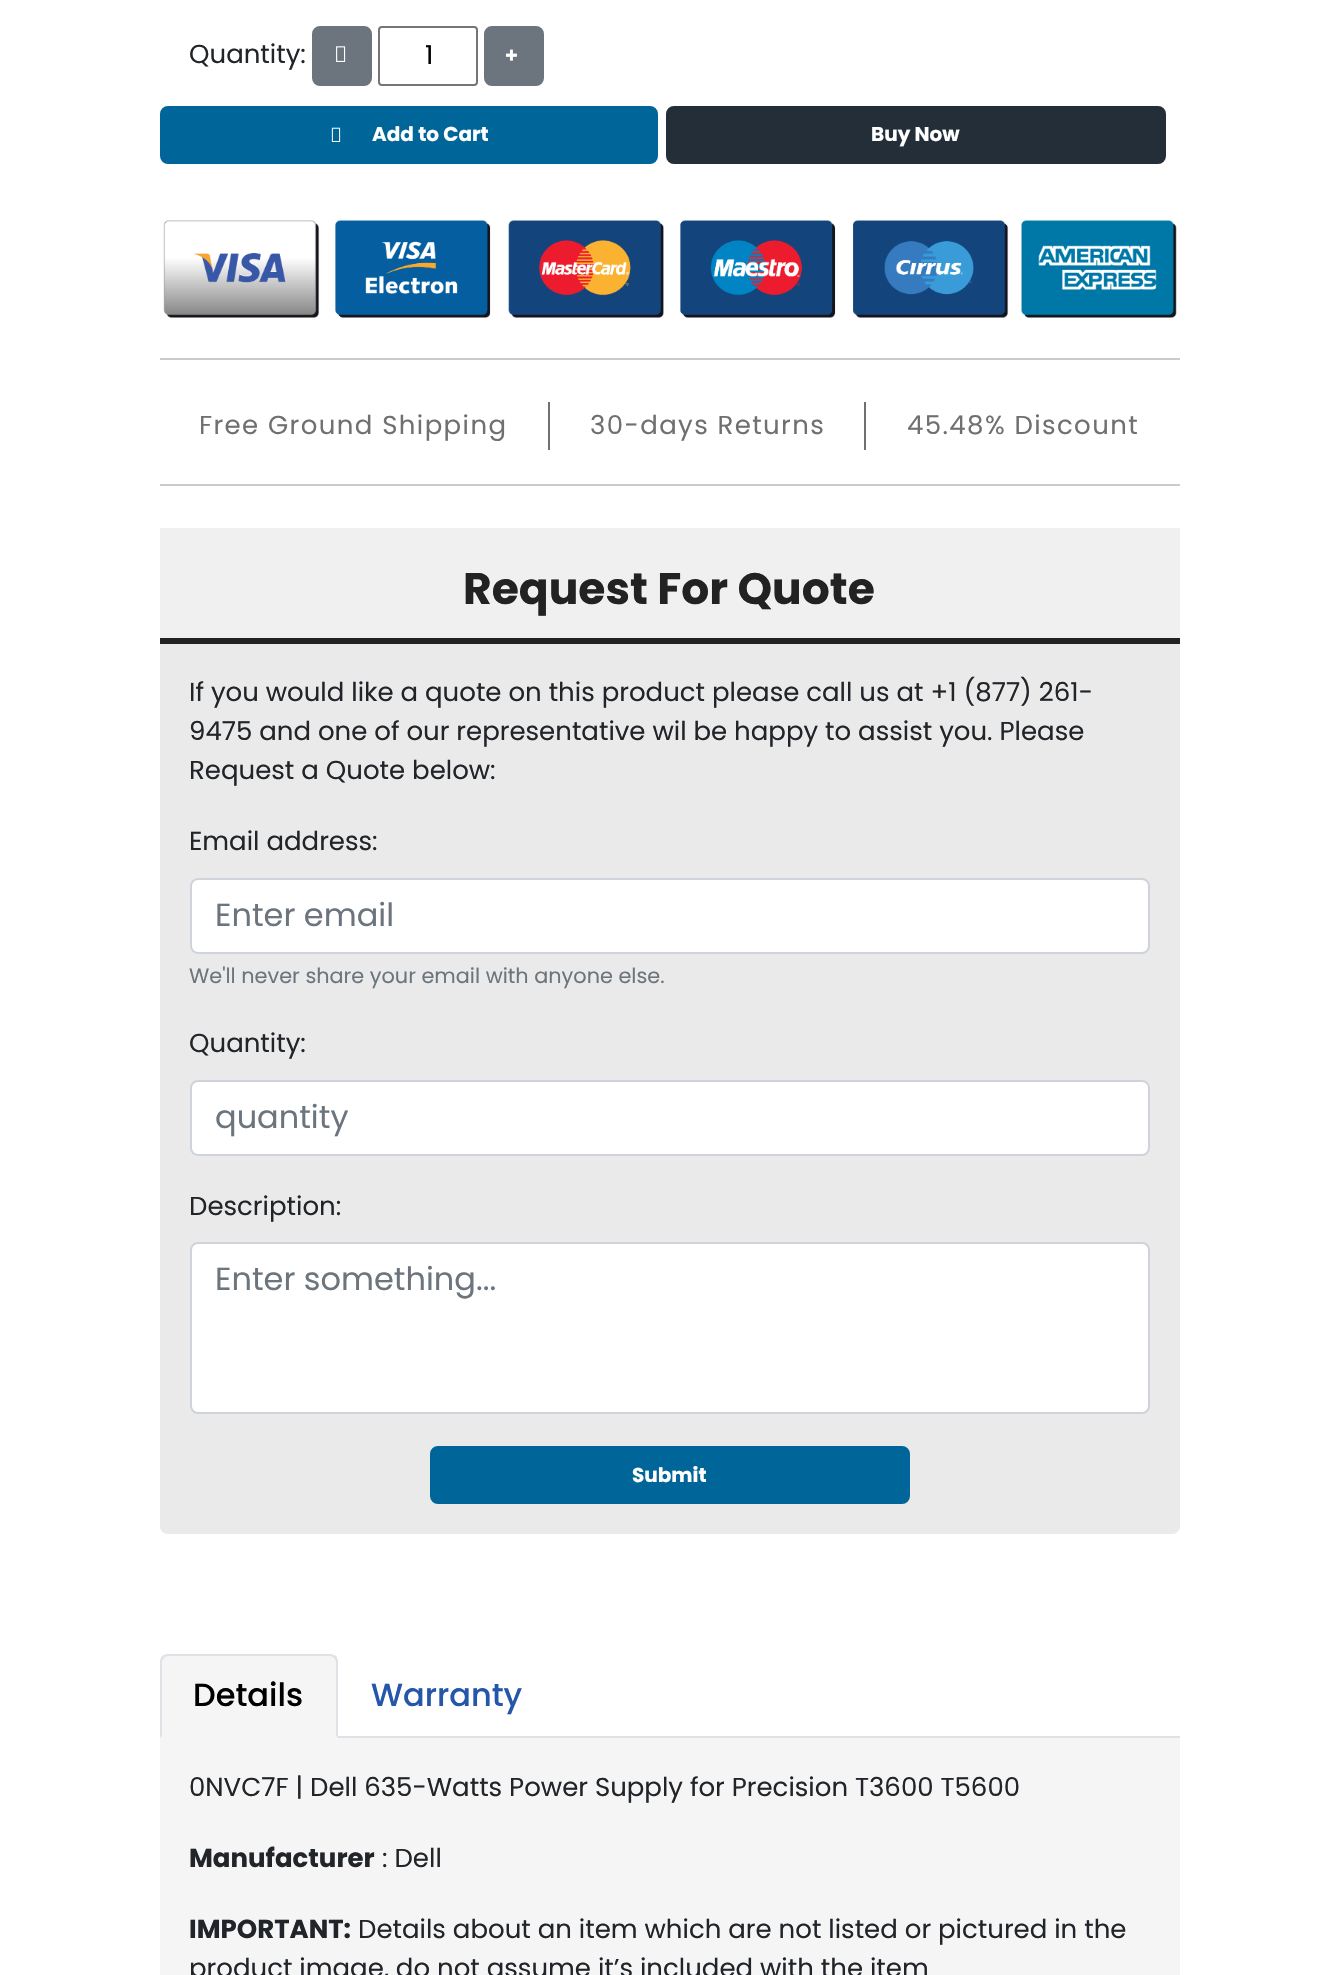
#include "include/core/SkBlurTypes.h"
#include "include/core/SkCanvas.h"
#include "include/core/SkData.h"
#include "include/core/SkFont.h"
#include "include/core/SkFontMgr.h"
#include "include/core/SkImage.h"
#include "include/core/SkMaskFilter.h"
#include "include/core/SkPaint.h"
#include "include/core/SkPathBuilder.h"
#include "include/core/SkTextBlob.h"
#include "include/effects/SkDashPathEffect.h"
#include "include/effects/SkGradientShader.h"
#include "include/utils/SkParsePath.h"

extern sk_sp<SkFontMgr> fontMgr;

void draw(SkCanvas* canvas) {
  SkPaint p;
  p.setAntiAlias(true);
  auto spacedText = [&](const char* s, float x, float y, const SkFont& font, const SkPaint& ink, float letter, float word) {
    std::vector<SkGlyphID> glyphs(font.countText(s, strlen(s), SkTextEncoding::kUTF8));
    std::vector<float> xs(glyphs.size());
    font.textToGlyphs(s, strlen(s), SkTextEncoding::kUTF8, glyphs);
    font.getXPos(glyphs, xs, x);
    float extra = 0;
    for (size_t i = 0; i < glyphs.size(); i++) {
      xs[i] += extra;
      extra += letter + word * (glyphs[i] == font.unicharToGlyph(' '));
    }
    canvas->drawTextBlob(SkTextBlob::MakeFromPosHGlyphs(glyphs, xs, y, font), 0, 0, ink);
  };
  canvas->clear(SK_ColorWHITE);
  p.setColor(SkColorSetRGB(108, 117, 125));
  canvas->drawRoundRect(SkRect::MakeLTRB(313, 27, 371, 85), 7, 7, p);
  p.setStyle(SkPaint::kStroke_Style);
  p.setStrokeWidth(2);
  canvas->drawRoundRect(SkRect::MakeLTRB(313, 27, 371, 85), 7, 7, p);
  canvas->drawImageRect(SkImages::DeferredFromEncodedData(SkData::MakeFromFileName("images/1.png")), SkRect::MakeLTRB(336, 46, 346, 62), SkSamplingOptions());
  p.setColor(SkColorSetRGB(118, 118, 118));
  canvas->drawRoundRect(SkRect::MakeLTRB(379, 27, 477, 85), 3, 3, p);
  p.setStyle(SkPaint::kFill_Style);
  p.setColor(SkColorSetRGB(108, 117, 125));
  canvas->drawRoundRect(SkRect::MakeLTRB(485, 27, 543, 85), 7, 7, p);
  p.setStyle(SkPaint::kStroke_Style);
  canvas->drawRoundRect(SkRect::MakeLTRB(485, 27, 543, 85), 7, 7, p);
  p.setStyle(SkPaint::kFill_Style);
  p.setColor(SkColorSetRGB(0, 101, 153));
  canvas->drawRoundRect(SkRect::MakeLTRB(161, 107, 657, 163), 7, 7, p);
  p.setStyle(SkPaint::kStroke_Style);
  canvas->drawRoundRect(SkRect::MakeLTRB(161, 107, 657, 163), 7, 7, p);
  canvas->drawImageRect(SkImages::DeferredFromEncodedData(SkData::MakeFromFileName("images/2.png")), SkRect::MakeLTRB(331, 127, 341, 142), SkSamplingOptions());
  p.setStyle(SkPaint::kFill_Style);
  p.setColor(SkColorSetRGB(35, 46, 56));
  canvas->drawRoundRect(SkRect::MakeLTRB(667, 107, 1165, 163), 7, 7, p);
  p.setStyle(SkPaint::kStroke_Style);
  canvas->drawRoundRect(SkRect::MakeLTRB(667, 107, 1165, 163), 7, 7, p);
  canvas->drawImageRect(SkImages::DeferredFromEncodedData(SkData::MakeFromFileName("images/3.png")), SkRect::MakeLTRB(163, 220, 1177, 318), SkSamplingOptions());
  p.setStyle(SkPaint::kFill_Style);
  p.setColor(SkColorSetRGB(203, 203, 203));
  canvas->drawRect(SkRect::MakeLTRB(160, 358, 1180, 360), p);
  canvas->drawRect(SkRect::MakeLTRB(160, 484, 1180, 486), p);
  p.setColor(SkColorSetRGB(112, 112, 112));
  canvas->drawRect(SkRect::MakeLTRB(864, 402, 866, 450), p);
  canvas->drawRect(SkRect::MakeLTRB(548, 402, 550, 450), p);
  p.setColor(SkColorSetRGB(240, 240, 240));
  canvas->drawRect(SkRect::MakeLTRB(160, 528, 1180, 638), p);
  p.setColor(SkColorSetRGB(34, 34, 34));
  canvas->drawRect(SkRect::MakeLTRB(160, 638, 1180, 644), p);
  p.setColor(SkColorSetRGB(234, 234, 234));
  canvas->drawPath(SkPathBuilder().moveTo(160, 644).lineTo(1180, 644).lineTo(1180, 1526).cubicTo(1180, 1530.5f, 1176.5f, 1534, 1172, 1534).lineTo(168, 1534).cubicTo(163.5f, 1534, 160, 1530.5f, 160, 1526).close().detach(), p);
  p.setColor(SK_ColorWHITE);
  canvas->drawRoundRect(SkRect::MakeLTRB(191, 879, 1149, 953), 7, 7, p);
  p.setStyle(SkPaint::kStroke_Style);
  p.setColor(SkColorSetRGB(206, 212, 218));
  canvas->drawRoundRect(SkRect::MakeLTRB(191, 879, 1149, 953), 7, 7, p);
  p.setStyle(SkPaint::kFill_Style);
  p.setColor(SK_ColorWHITE);
  canvas->drawRoundRect(SkRect::MakeLTRB(191, 1081, 1149, 1155), 7, 7, p);
  p.setStyle(SkPaint::kStroke_Style);
  p.setColor(SkColorSetRGB(206, 212, 218));
  canvas->drawRoundRect(SkRect::MakeLTRB(191, 1081, 1149, 1155), 7, 7, p);
  p.setStyle(SkPaint::kFill_Style);
  p.setColor(SK_ColorWHITE);
  canvas->drawRoundRect(SkRect::MakeLTRB(191, 1243, 1149, 1413), 7, 7, p);
  p.setStyle(SkPaint::kStroke_Style);
  p.setColor(SkColorSetRGB(206, 212, 218));
  canvas->drawRoundRect(SkRect::MakeLTRB(191, 1243, 1149, 1413), 7, 7, p);
  p.setStyle(SkPaint::kFill_Style);
  p.setColor(SkColorSetRGB(0, 101, 153));
  canvas->drawRoundRect(SkRect::MakeLTRB(431, 1447, 909, 1503), 7, 7, p);
  p.setStyle(SkPaint::kStroke_Style);
  canvas->drawRoundRect(SkRect::MakeLTRB(431, 1447, 909, 1503), 7, 7, p);
  p.setStyle(SkPaint::kFill_Style);
  p.setColor(SkColorSetRGB(222, 226, 230));
  canvas->drawRect(SkRect::MakeLTRB(338, 1736, 1180, 1738), p);
  p.setColor(SkColorSetRGB(245, 245, 245));
  canvas->drawPath(SkPathBuilder().moveTo(168, 1654).lineTo(330, 1654).cubicTo(334.5f, 1654, 338, 1657.5f, 338, 1662).lineTo(338, 1738).lineTo(160, 1738).lineTo(160, 1662).cubicTo(160, 1657.5f, 163.5f, 1654, 168, 1654).close().detach(), p);
  p.setColor(SkColorSetRGB(222, 226, 230));
  canvas->drawPath(SkPathBuilder().moveTo(168, 1654).cubicTo(166, 1654, 164, 1655, 162, 1656).lineTo(164, 1658).cubicTo(165, 1657, 166, 1656, 168, 1656).lineTo(330, 1656).cubicTo(332, 1656, 333, 1657, 334, 1658).lineTo(336, 1656).cubicTo(334, 1655, 332, 1654, 330, 1654).close().detach(), p);
  canvas->drawPath(SkPathBuilder().moveTo(338, 1738).lineTo(338, 1662).cubicTo(338, 1660, 337, 1658, 336, 1656).lineTo(334, 1658).lineTo(336, 1661).lineTo(336, 1736).close().detach(), p);
  p.setColor(SkColorSetRGB(245, 245, 245));
  canvas->drawPath(SkPathBuilder().moveTo(338, 1738).lineTo(336, 1736).lineTo(162, 1736).lineTo(160, 1738).close().detach(), p);
  p.setColor(SkColorSetRGB(222, 226, 230));
  canvas->drawPath(SkPathBuilder().moveTo(160, 1738).lineTo(162, 1736).lineTo(162, 1661).lineTo(164, 1658).lineTo(162, 1656).cubicTo(161, 1658, 160, 1660, 160, 1662).close().detach(), p);
  p.setColor(SkColorSetRGB(245, 245, 245));
  canvas->drawRect(SkRect::MakeLTRB(160, 1738, 1180, 1975), p);
  SkFont font1(fontMgr->matchFamilyStyle("Poppins", SkFontStyle::Normal()), 26);
  font1.setSubpixel(true);
  p.setColor(SkColorSetRGB(33, 37, 41));
  canvas->drawString("Quantity:", 189, 63, font1, p);
  p.setColor(SK_ColorBLACK);
  canvas->drawString("1", 425, 64, font1, p);
  SkFont font2(fontMgr->matchFamilyStyle("Noto Sans", SkFontStyle(900, SkFontStyle::kNormal_Width, SkFontStyle::kUpright_Slant)), 22);
  font2.setSubpixel(true);
  p.setColor(SK_ColorWHITE);
  canvas->drawString("+", 505, 63, font2, p);
  SkFont font3(fontMgr->matchFamilyStyle("Poppins", SkFontStyle::Bold()), 20);
  font3.setSubpixel(true);
  canvas->drawString("Add to Cart", 372, 141, font3, p);
  canvas->drawString("Buy Now", 871, 141, font3, p);
  p.setColor(SkColorSetRGB(112, 112, 112));
  spacedText("Free Ground Shipping", 199, 434, font1, p, 1.4f, 0);
  spacedText("30-days Returns", 590, 434, font1, p, 1.4f, 0);
  spacedText("45.48% Discount", 907, 434, font1, p, 1.4f, 0);
  SkFont font4(fontMgr->matchFamilyStyle("Poppins", SkFontStyle::Bold()), 44);
  font4.setSubpixel(true);
  p.setColor(SkColorSetRGB(34, 34, 34));
  canvas->drawString("Request For Quote", 463, 604, font4, p);
  p.setColor(SkColorSetRGB(33, 37, 41));
  canvas->drawString("If you would like a quote on this product please call us at +1 (877) 261-", 189, 701, font1, p);
  canvas->drawString("9475 and one of our representative wil be happy to assist you. Please", 189, 740, font1, p);
  canvas->drawString("Request a Quote below:", 189, 779, font1, p);
  canvas->drawString("Email address:", 189, 850, font1, p);
  SkFont font5(fontMgr->matchFamilyStyle("Poppins", SkFontStyle::Normal()), 32);
  font5.setSubpixel(true);
  p.setColor(SkColorSetRGB(108, 117, 125));
  canvas->drawString("Enter email", 215, 926, font5, p);
  SkFont font6(fontMgr->matchFamilyStyle("Poppins", SkFontStyle::Normal()), 20.8f);
  font6.setSubpixel(true);
  canvas->drawString("We'll never share your email with anyone else.", 189, 983, font6, p);
  p.setColor(SkColorSetRGB(33, 37, 41));
  canvas->drawString("Quantity:", 189, 1052, font1, p);
  p.setColor(SkColorSetRGB(108, 117, 125));
  canvas->drawString("quantity", 215, 1128, font5, p);
  p.setColor(SkColorSetRGB(33, 37, 41));
  canvas->drawString("Description:", 189, 1215, font1, p);
  p.setColor(SkColorSetRGB(108, 117, 125));
  canvas->drawString("Enter something...", 215, 1290, font5, p);
  p.setColor(SK_ColorWHITE);
  canvas->drawString("Submit", 632, 1482, font3, p);
  SkFont font7(fontMgr->matchFamilyStyle("Poppins", SkFontStyle(500, SkFontStyle::kNormal_Width, SkFontStyle::kUpright_Slant)), 32);
  font7.setSubpixel(true);
  p.setColor(SK_ColorBLACK);
  canvas->drawString("Details", 193, 1706, font7, p);
  p.setColor(SkColorSetRGB(36, 87, 170));
  canvas->drawString("Warranty", 371, 1706, font7, p);
  p.setColor(SkColorSetRGB(33, 37, 41));
  canvas->drawString("0NVC7F | Dell 635-Watts Power Supply for Precision T3600 T5600", 189, 1796, font1, p);
  SkFont font8(fontMgr->matchFamilyStyle("Poppins", SkFontStyle::Bold()), 26);
  font8.setSubpixel(true);
  canvas->drawString("Manufacturer", 189, 1867, font8, p);
  canvas->drawString(": Dell", 382, 1867, font1, p);
  canvas->drawString("IMPORTANT:", 189, 1938, font8, p);
  canvas->drawString("Details about an item which are not listed or pictured in the", 358, 1938, font1, p);
  canvas->drawString("product image, do not assume it’s included with the item", 189, 1977, font1, p);
}
